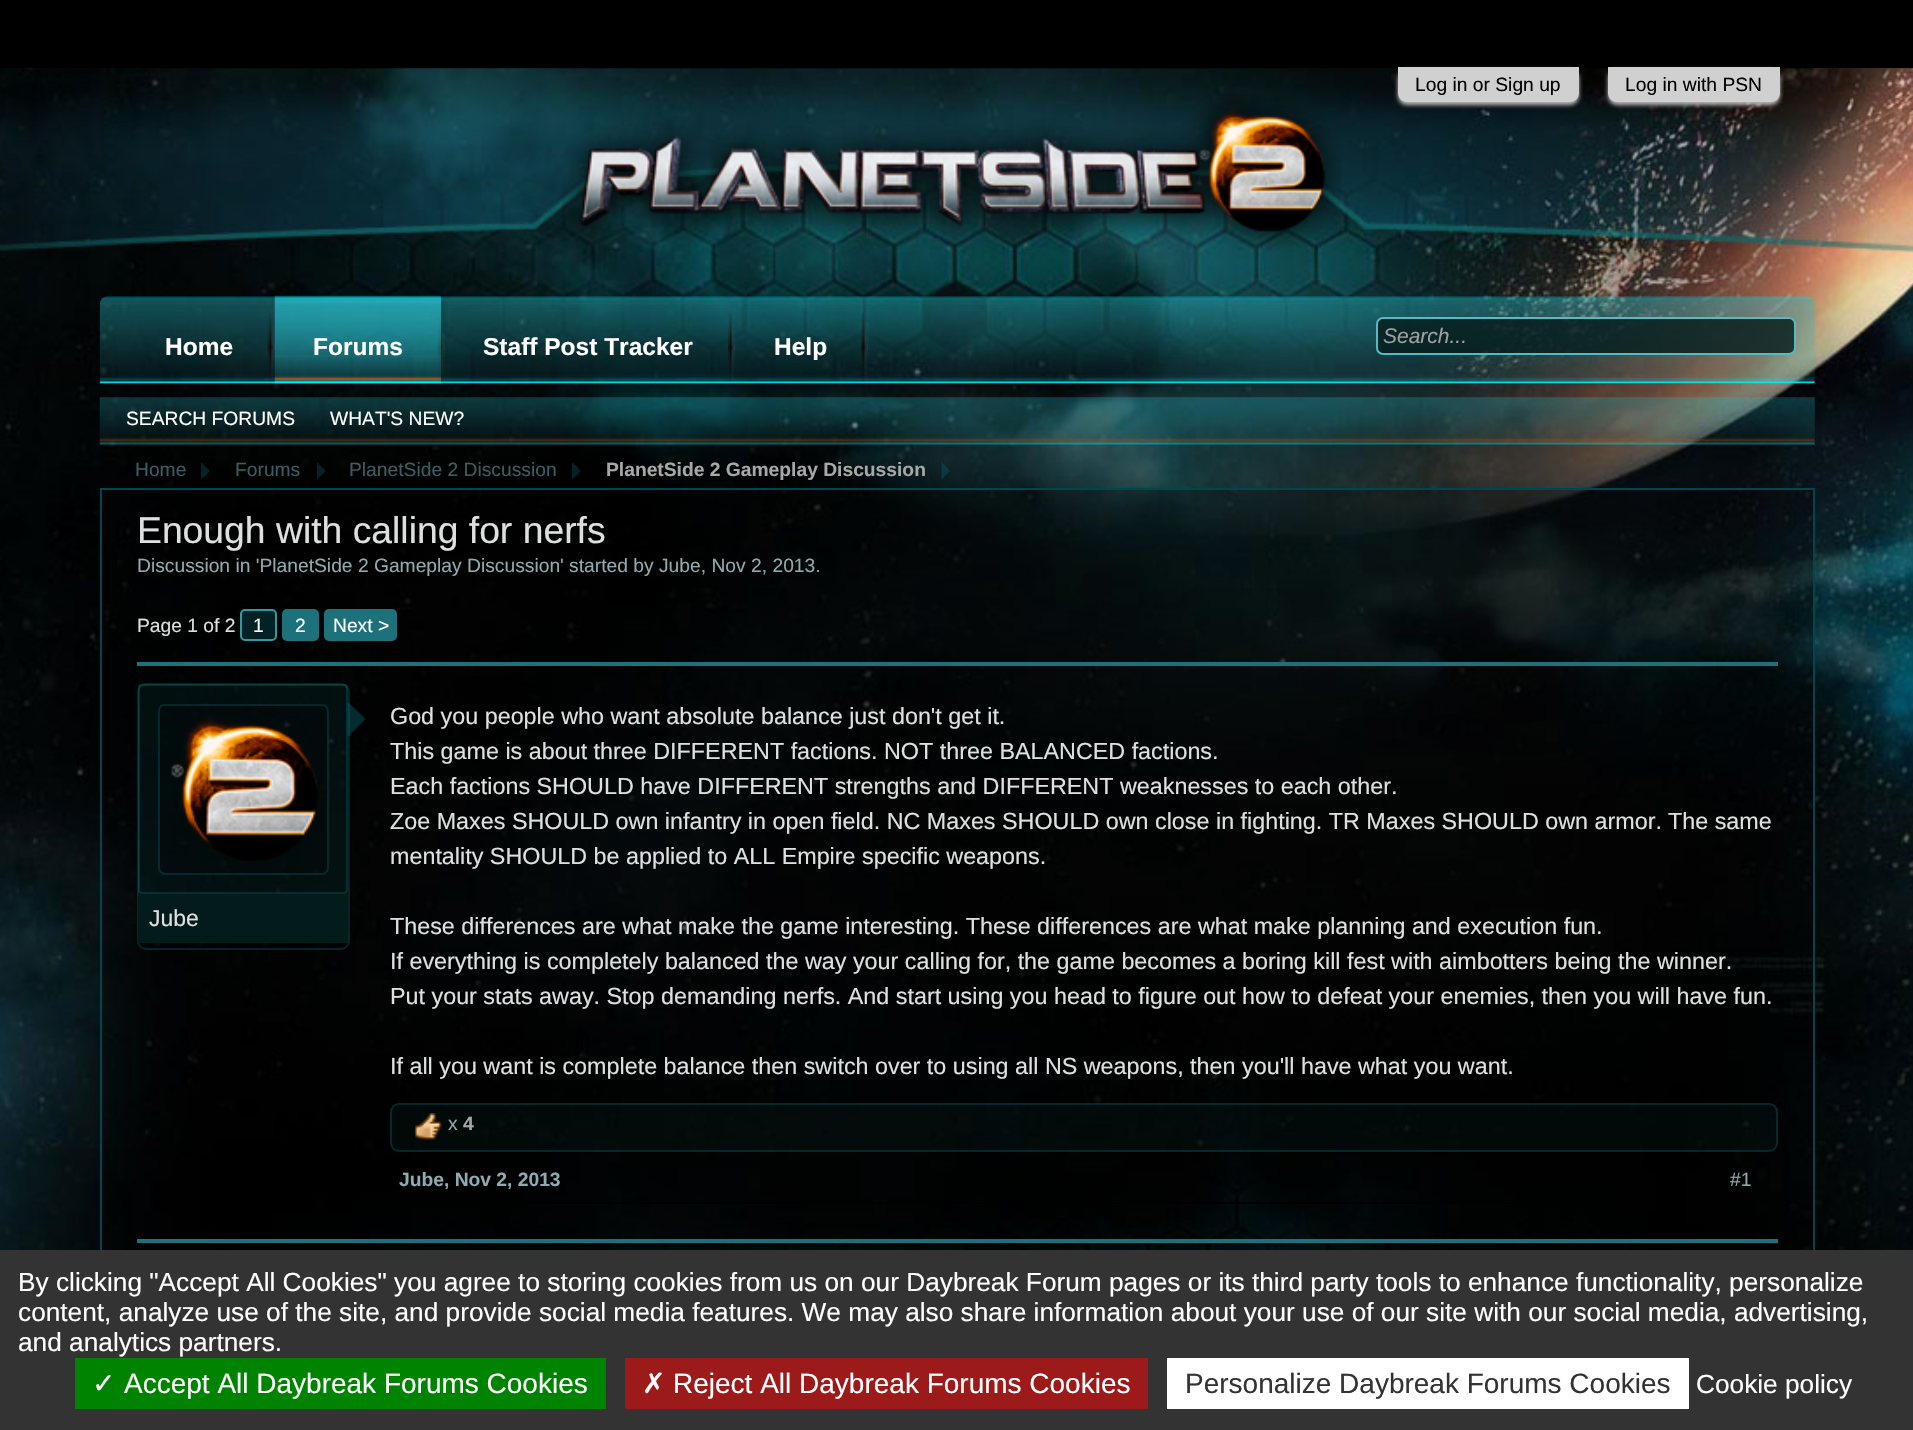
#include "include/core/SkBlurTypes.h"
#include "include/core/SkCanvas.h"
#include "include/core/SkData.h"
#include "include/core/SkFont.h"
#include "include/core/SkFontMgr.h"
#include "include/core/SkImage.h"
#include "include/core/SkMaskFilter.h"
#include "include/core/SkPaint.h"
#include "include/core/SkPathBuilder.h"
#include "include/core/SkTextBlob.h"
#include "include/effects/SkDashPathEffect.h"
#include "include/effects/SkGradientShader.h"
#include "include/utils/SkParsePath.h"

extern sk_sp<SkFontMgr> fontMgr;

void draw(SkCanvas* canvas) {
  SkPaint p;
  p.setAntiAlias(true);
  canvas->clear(SK_ColorWHITE);
  canvas->drawImageRect(SkImages::DeferredFromEncodedData(SkData::MakeFromFileName("images/1.png")), SkRect::MakeLTRB(0, 68, 1913, 1250), SkSamplingOptions());
  p.setColor(SK_ColorBLACK);
  canvas->drawRect(SkRect::MakeLTRB(0, 0, 1913, 68), p);
  canvas->drawImageRect(SkImages::DeferredFromEncodedData(SkData::MakeFromFileName("images/2.png")), SkRect::MakeLTRB(137, 68, 1815, 69), SkSamplingOptions());
  p.setColor(SkColorSetRGB(188, 188, 188));
  p.setMaskFilter(SkMaskFilter::MakeBlur(kNormal_SkBlurStyle, 2));
  canvas->drawRoundRect(SkRect::MakeLTRB(1398, 70, 1579, 105), 9, 9, p);
  p.setMaskFilter(nullptr);
  p.setColor(SkColorSetRGB(208, 208, 208));
  canvas->drawPath(SkPathBuilder().moveTo(1398, 67).lineTo(1579, 67).lineTo(1579, 93).cubicTo(1579, 98, 1575, 102, 1570, 102).lineTo(1407, 102).cubicTo(1402, 102, 1398, 98, 1398, 93).close().detach(), p);
  p.setColor(SkColorSetRGB(188, 188, 188));
  p.setMaskFilter(SkMaskFilter::MakeBlur(kNormal_SkBlurStyle, 2));
  canvas->drawRoundRect(SkRect::MakeLTRB(1608, 70, 1780, 105), 9, 9, p);
  p.setMaskFilter(nullptr);
  p.setColor(SkColorSetRGB(208, 208, 208));
  canvas->drawPath(SkPathBuilder().moveTo(1608, 67).lineTo(1780, 67).lineTo(1780, 93).cubicTo(1780, 98, 1776, 102, 1771, 102).lineTo(1617, 102).cubicTo(1612, 102, 1608, 98, 1608, 93).close().detach(), p);
  canvas->drawImageRect(SkImages::DeferredFromEncodedData(SkData::MakeFromFileName("images/3.png")), SkRect::MakeLTRB(562, 94, 1342, 251), SkSamplingOptions());
  canvas->drawImageRect(SkImages::DeferredFromEncodedData(SkData::MakeFromFileName("images/4.png")), SkRect::MakeLTRB(99, 296, 1815, 384), SkSamplingOptions());
  canvas->drawImageRect(SkImages::DeferredFromEncodedData(SkData::MakeFromFileName("images/5.png")), SkRect::MakeLTRB(437, 313, 445, 382), SkSamplingOptions());
  canvas->drawImageRect(SkImages::DeferredFromEncodedData(SkData::MakeFromFileName("images/10.png")), SkRect::MakeLTRB(267, 313, 275, 382), SkSamplingOptions());
  canvas->drawImageRect(SkImages::DeferredFromEncodedData(SkData::MakeFromFileName("images/6.png")), SkRect::MakeLTRB(274, 295, 441, 384), SkSamplingOptions());
  canvas->drawImageRect(SkImages::DeferredFromEncodedData(SkData::MakeFromFileName("images/7.png")), SkRect::MakeLTRB(99, 397, 1815, 445), SkSamplingOptions());
  canvas->drawImageRect(SkImages::DeferredFromEncodedData(SkData::MakeFromFileName("images/8.png")), SkRect::MakeLTRB(728, 313, 735, 382), SkSamplingOptions());
  canvas->drawImageRect(SkImages::DeferredFromEncodedData(SkData::MakeFromFileName("images/9.png")), SkRect::MakeLTRB(861, 313, 868, 382), SkSamplingOptions());
  p.setColor(SkColorSetARGB(204, 4, 27, 27));
  canvas->drawRoundRect(SkRect::MakeLTRB(1377, 318, 1795, 354), 6, 6, p);
  p.setStyle(SkPaint::kStroke_Style);
  p.setStrokeWidth(2);
  p.setColor(SkColorSetRGB(82, 188, 197));
  canvas->drawRoundRect(SkRect::MakeLTRB(1377, 318, 1795, 354), 6, 6, p);
  p.setStyle(SkPaint::kFill_Style);
  p.setColor(SkColorSetARGB(69, 9, 123, 133));
  canvas->drawPath(SkPathBuilder().moveTo(201, 479.5f).lineTo(201, 462).lineTo(210, 471).close().detach(), p);
  p.setColor(SkColorSetRGB(3, 35, 37));
  canvas->drawPath(SkPathBuilder().moveTo(317, 479.5f).lineTo(317, 462).lineTo(325.5f, 471).close().detach(), p);
  p.setColor(SkColorSetARGB(69, 9, 123, 133));
  canvas->drawPath(SkPathBuilder().moveTo(572, 479.5f).lineTo(572, 462).lineTo(581, 471).close().detach(), p);
  canvas->drawPath(SkPathBuilder().moveTo(941.5f, 479.5f).lineTo(941.5f, 462).lineTo(950, 471).close().detach(), p);
  p.setColor(SkColorSetARGB(79, 0, 0, 0));
  canvas->drawRect(SkRect::MakeLTRB(102, 490, 1813, 1250), p);
  p.setStyle(SkPaint::kStroke_Style);
  p.setColor(SkColorSetRGB(0, 70, 76));
  canvas->drawRect(SkRect::MakeLTRB(101, 489, 1814, 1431), p);
  p.setStyle(SkPaint::kFill_Style);
  p.setColor(SkColorSetARGB(69, 9, 123, 133));
  canvas->drawRoundRect(SkRect::MakeLTRB(241, 610, 276, 640), 4, 4, p);
  p.setStyle(SkPaint::kStroke_Style);
  p.setColor(SkColorSetRGB(43, 154, 165));
  canvas->drawRoundRect(SkRect::MakeLTRB(241, 610, 276, 640), 4, 4, p);
  p.setStyle(SkPaint::kFill_Style);
  p.setColor(SkColorSetRGB(28, 113, 123));
  canvas->drawRoundRect(SkRect::MakeLTRB(282, 609, 319, 641), 5, 5, p);
  canvas->drawRoundRect(SkRect::MakeLTRB(324, 609, 397, 641), 5, 5, p);
  canvas->drawRect(SkRect::MakeLTRB(137, 662, 1778, 666), p);
  p.setStyle(SkPaint::kStroke_Style);
  p.setColor(SkColorSetARGB(69, 9, 123, 133));
  canvas->drawRoundRect(SkRect::MakeLTRB(138, 684, 349, 949), 8, 8, p);
  p.setStyle(SkPaint::kFill_Style);
  p.setColor(SkColorSetARGB(26, 9, 123, 133));
  canvas->drawRoundRect(SkRect::MakeLTRB(138, 684, 348, 894), 4, 4, p);
  p.setStyle(SkPaint::kStroke_Style);
  p.setColor(SkColorSetARGB(69, 9, 123, 133));
  canvas->drawRoundRect(SkRect::MakeLTRB(139, 685, 347, 893), 3, 3, p);
  p.setStyle(SkPaint::kFill_Style);
  p.setColor(SkColorSetARGB(79, 0, 0, 0));
  canvas->drawRoundRect(SkRect::MakeLTRB(158, 704, 329, 875), 7, 7, p);
  canvas->drawImageRect(SkImages::DeferredFromEncodedData(SkData::MakeFromFileName("images/11.png")), SkRect::MakeLTRB(171, 715, 318, 861), SkSamplingOptions());
  p.setStyle(SkPaint::kStroke_Style);
  p.setColor(SkColorSetARGB(69, 9, 123, 133));
  canvas->drawRoundRect(SkRect::MakeLTRB(159, 705, 328, 874), 6, 6, p);
  p.setStyle(SkPaint::kFill_Style);
  canvas->drawPath(SkPathBuilder().moveTo(348, 737).lineTo(348, 702).lineTo(366, 719).close().detach(), p);
  p.setColor(SkColorSetARGB(26, 9, 123, 133));
  canvas->drawPath(SkPathBuilder().moveTo(346.5f, 737).lineTo(346.5f, 702).lineTo(364, 719).close().detach(), p);
  p.setColor(SkColorSetRGB(4, 27, 27));
  canvas->drawRect(SkRect::MakeLTRB(138, 894, 348, 943), p);
  p.setColor(SK_ColorBLACK);
  canvas->drawRect(SkRect::MakeLTRB(524, 1202, 1516, 1204), p);
  p.setColor(SkColorSetARGB(77, 4, 27, 27));
  canvas->drawRoundRect(SkRect::MakeLTRB(390, 1103, 1778, 1152), 9, 9, p);
  p.setStyle(SkPaint::kStroke_Style);
  p.setColor(SkColorSetARGB(69, 9, 123, 133));
  canvas->drawRoundRect(SkRect::MakeLTRB(391, 1104, 1777, 1151), 8, 8, p);
  canvas->drawImageRect(SkImages::DeferredFromEncodedData(SkData::MakeFromFileName("images/12.png")), SkRect::MakeLTRB(414, 1113, 442, 1140), SkSamplingOptions());
  p.setStyle(SkPaint::kFill_Style);
  p.setColor(SkColorSetRGB(28, 113, 123));
  canvas->drawRect(SkRect::MakeLTRB(137, 1239, 1778, 1243), p);
  p.setColor(SkColorSetRGB(51, 51, 51));
  canvas->drawRect(SkRect::MakeLTRB(0, 1250, 1913, 1430), p);
  p.setColor(SkColorSetRGB(0, 131, 0));
  canvas->drawRect(SkRect::MakeLTRB(75, 1358, 606, 1409), p);
  p.setColor(SkColorSetRGB(156, 26, 26));
  canvas->drawRect(SkRect::MakeLTRB(625, 1358, 1148, 1409), p);
  p.setColor(SK_ColorWHITE);
  canvas->drawRect(SkRect::MakeLTRB(1167, 1358, 1689, 1409), p);
  SkFont font1(fontMgr->matchFamilyStyle("Liberation Sans", SkFontStyle::Normal()), 19.25f);
  font1.setSubpixel(true);
  p.setColor(SK_ColorBLACK);
  canvas->drawString("Log in or Sign up", 1415, 91, font1, p);
  canvas->drawString("Log in with PSN", 1625, 91, font1, p);
  SkFont font2(fontMgr->matchFamilyStyle("Liberation Sans", SkFontStyle::Bold()), 24.5f);
  font2.setSubpixel(true);
  p.setColor(SK_ColorWHITE);
  canvas->drawString("Forums", 313, 355, font2, p);
  canvas->drawString("SEARCH FORUMS", 126, 425, font1, p);
  canvas->drawString("WHAT'S NEW?", 330, 425, font1, p);
  canvas->drawString("Staff Post Tracker", 483, 355, font2, p);
  canvas->drawString("Help", 774, 355, font2, p);
  canvas->drawString("Home", 165, 355, font2, p);
  SkFont font3(fontMgr->matchFamilyStyle("Liberation Sans", SkFontStyle::Italic()), 21);
  font3.setSubpixel(true);
  p.setColor(SkColorSetRGB(160, 160, 160));
  canvas->drawString("Search...", 1383, 343, font3, p);
  p.setColor(SkColorSetRGB(59, 93, 97));
  canvas->drawString("Home", 135, 476, font1, p);
  canvas->drawString("Forums", 235, 476, font1, p);
  canvas->drawString("PlanetSide 2 Discussion", 349, 476, font1, p);
  SkFont font4(fontMgr->matchFamilyStyle("Liberation Sans", SkFontStyle::Bold()), 19.25f);
  font4.setSubpixel(true);
  p.setColor(SkColorSetRGB(167, 167, 167));
  canvas->drawString("PlanetSide 2 Gameplay Discussion", 606, 476, font4, p);
  SkFont font5(fontMgr->matchFamilyStyle("Liberation Sans", SkFontStyle::Normal()), 37.3f);
  font5.setSubpixel(true);
  p.setColor(SkColorSetRGB(222, 224, 223));
  canvas->drawString("Enough with calling for nerfs", 137, 543, font5, p);
  p.setColor(SkColorSetRGB(142, 172, 174));
  canvas->drawString("Discussion in 'PlanetSide 2 Gameplay Discussion' started by Jube, Nov 2, 2013.", 137, 572, font1, p);
  p.setColor(SkColorSetRGB(222, 224, 223));
  canvas->drawString("Page 1 of 2", 137, 632, font1, p);
  p.setColor(SK_ColorWHITE);
  canvas->drawString("1", 253, 632, font1, p);
  canvas->drawString("2", 295, 632, font1, p);
  canvas->drawString("Next >", 333, 632, font1, p);
  SkFont font6(fontMgr->matchFamilyStyle("Liberation Sans", SkFontStyle::Normal()), 23);
  font6.setSubpixel(true);
  p.setColor(SkColorSetRGB(222, 224, 223));
  canvas->drawString("Jube", 149, 926, font6, p);
  SkFont font7(fontMgr->matchFamilyStyle("Liberation Sans", SkFontStyle::Normal()), 23.33f);
  font7.setSubpixel(true);
  canvas->drawString("God you people who want absolute balance just don't get it.", 390, 724, font7, p);
  canvas->drawString("This game is about three DIFFERENT factions. NOT three BALANCED factions.", 390, 759, font7, p);
  canvas->drawString("Each factions SHOULD have DIFFERENT strengths and DIFFERENT weaknesses to each other.", 390, 794, font7, p);
  canvas->drawString("Zoe Maxes SHOULD own infantry in open field. NC Maxes SHOULD own close in fighting. TR Maxes SHOULD own armor.", 390, 829, font7, p);
  canvas->drawString("The same", 1668, 829, font7, p);
  canvas->drawString("mentality SHOULD be applied to ALL Empire specific weapons.", 390, 864, font7, p);
  canvas->drawString("These differences are what make the game interesting. These differences are what make planning and execution fun.", 390, 934, font7, p);
  canvas->drawString("If everything is completely balanced the way your calling for, the game becomes a boring kill fest with aimbotters being the winner.", 390, 969, font7, p);
  canvas->drawString("Put your stats away. Stop demanding nerfs. And start using you head to figure out how to defeat your enemies, then you will have fun.", 390, 1004, font7, p);
  canvas->drawString("If all you want is complete balance then switch over to using all NS weapons, then you'll have what you want.", 390, 1074, font7, p);
  p.setColor(SkColorSetRGB(142, 172, 174));
  canvas->drawString("x", 448, 1130, font1, p);
  p.setColor(SkColorSetRGB(167, 167, 167));
  canvas->drawString("4", 463, 1130, font4, p);
  p.setColor(SkColorSetRGB(142, 172, 174));
  canvas->drawString("Jube, Nov 2, 2013", 399, 1186, font4, p);
  canvas->drawString("#1", 1730, 1186, font1, p);
  SkFont font8(fontMgr->matchFamilyStyle("Liberation Sans", SkFontStyle::Normal()), 26.25f);
  font8.setSubpixel(true);
  p.setColor(SK_ColorWHITE);
  canvas->drawString("By clicking \"Accept All Cookies\" you agree to storing cookies from us on our Daybreak Forum pages or its third party tools to enhance functionality, personalize", 18, 1291, font8, p);
  canvas->drawString("content, analyze use of the site, and provide social media features. We may also share information about your use of our site with our social media, advertising,", 18, 1321, font8, p);
  canvas->drawString("and analytics partners.", 18, 1351, font8, p);
  SkFont font9(fontMgr->matchFamilyStyle("DejaVu Sans", SkFontStyle::Normal()), 28);
  font9.setSubpixel(true);
  canvas->drawString("✓", 92, 1393, font9, p);
  SkFont font10(fontMgr->matchFamilyStyle("Liberation Sans", SkFontStyle::Normal()), 28);
  font10.setSubpixel(true);
  canvas->drawString("Accept All Daybreak Forums Cookies", 124, 1393, font10, p);
  canvas->drawString("✗", 642, 1393, font9, p);
  canvas->drawString("Reject All Daybreak Forums Cookies", 673, 1393, font10, p);
  p.setColor(SkColorSetRGB(51, 51, 51));
  canvas->drawString("Personalize Daybreak Forums Cookies", 1185, 1393, font10, p);
  p.setColor(SK_ColorWHITE);
  canvas->drawString("Cookie policy", 1696, 1393, font8, p);
}
